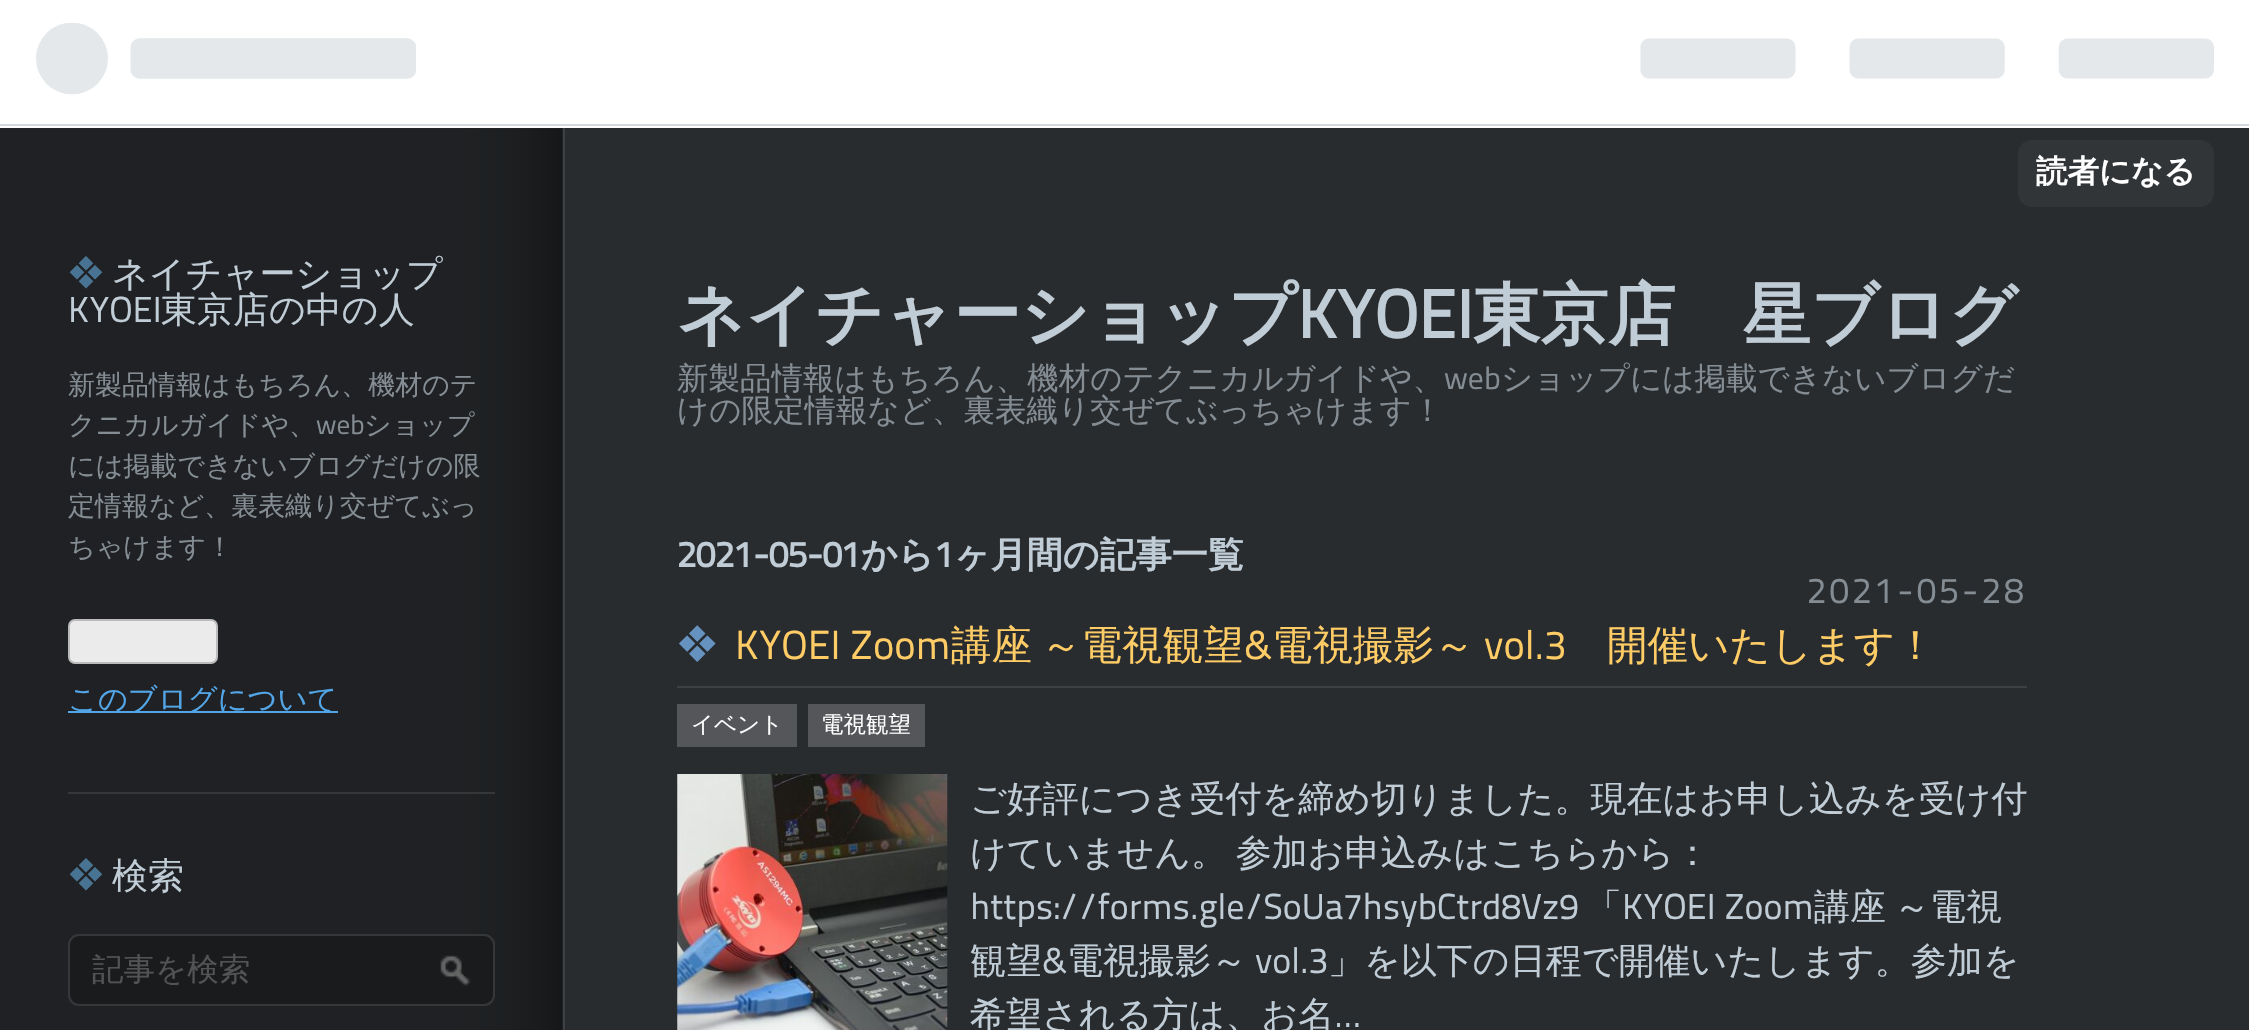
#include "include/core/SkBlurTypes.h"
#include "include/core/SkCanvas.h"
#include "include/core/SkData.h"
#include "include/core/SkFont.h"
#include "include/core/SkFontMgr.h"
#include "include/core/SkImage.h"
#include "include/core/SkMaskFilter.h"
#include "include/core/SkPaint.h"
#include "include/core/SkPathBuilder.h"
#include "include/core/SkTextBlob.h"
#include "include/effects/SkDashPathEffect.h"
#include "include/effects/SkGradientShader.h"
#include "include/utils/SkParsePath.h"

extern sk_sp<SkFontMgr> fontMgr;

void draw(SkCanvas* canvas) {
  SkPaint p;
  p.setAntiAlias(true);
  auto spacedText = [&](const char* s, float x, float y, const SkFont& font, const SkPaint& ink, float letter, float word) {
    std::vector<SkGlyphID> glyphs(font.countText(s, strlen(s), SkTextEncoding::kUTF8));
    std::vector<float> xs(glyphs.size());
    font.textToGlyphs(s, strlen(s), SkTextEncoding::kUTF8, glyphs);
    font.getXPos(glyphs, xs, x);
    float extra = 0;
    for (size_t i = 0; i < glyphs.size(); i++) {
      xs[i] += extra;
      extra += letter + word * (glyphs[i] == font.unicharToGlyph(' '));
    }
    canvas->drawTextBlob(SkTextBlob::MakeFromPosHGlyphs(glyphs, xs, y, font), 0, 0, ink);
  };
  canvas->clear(SkColorSetRGB(41, 44, 47));
  p.setColor(SK_ColorWHITE);
  canvas->drawRect(SkRect::MakeLTRB(0, 0, 2249, 128), p);
  p.setColor(SkColorSetRGB(210, 216, 221));
  canvas->drawRect(SkRect::MakeLTRB(0, 124, 2249, 126), p);
  canvas->drawImageRect(SkImages::DeferredFromEncodedData(SkData::MakeFromFileName("images/1.png")), SkRect::MakeLTRB(36, 23, 416, 95), SkSamplingOptions());
  canvas->drawImageRect(SkImages::DeferredFromEncodedData(SkData::MakeFromFileName("images/2.png")), SkRect::MakeLTRB(1640, 38, 2214, 79), SkSamplingOptions());
  p.setColor(SkColorSetRGB(49, 53, 56));
  canvas->drawRoundRect(SkRect::MakeLTRB(2018, 140, 2214, 207), 14, 14, p);
  canvas->drawImageRect(SkImages::DeferredFromEncodedData(SkData::MakeFromFileName("images/3.png")), SkRect::MakeLTRB(0, 128, 563, 1030), SkSamplingOptions());
  p.setColor(SkColorSetRGB(53, 55, 57));
  canvas->drawRect(SkRect::MakeLTRB(68, 792, 495, 794), p);
  p.setColor(SkColorSetRGB(235, 235, 235));
  canvas->drawRoundRect(SkRect::MakeLTRB(69, 620, 217, 663), 6, 6, p);
  p.setStyle(SkPaint::kStroke_Style);
  p.setStrokeWidth(2);
  p.setColor(SkColorSetRGB(187, 187, 187));
  canvas->drawRoundRect(SkRect::MakeLTRB(69, 620, 217, 663), 6, 6, p);
  p.setStyle(SkPaint::kFill_Style);
  p.setColor(SkColorSetRGB(82, 166, 231));
  canvas->drawRect(SkRect::MakeLTRB(68, 711, 338, 713), p);
  p.setColor(SkColorSetRGB(25, 27, 29));
  canvas->drawRoundRect(SkRect::MakeLTRB(69, 935, 494, 1005), 10, 10, p);
  p.setStyle(SkPaint::kStroke_Style);
  p.setColor(SkColorSetRGB(53, 55, 57));
  canvas->drawRoundRect(SkRect::MakeLTRB(69, 935, 494, 1005), 10, 10, p);
  canvas->drawImageRect(SkImages::DeferredFromEncodedData(SkData::MakeFromFileName("images/4.png")), SkRect::MakeLTRB(440, 955, 471, 986), SkSamplingOptions());
  p.setStyle(SkPaint::kFill_Style);
  p.setColor(SkColorSetRGB(62, 65, 68));
  canvas->drawRect(SkRect::MakeLTRB(677, 686, 2027, 688), p);
  p.setColor(SkColorSetRGB(84, 86, 89));
  canvas->drawRect(SkRect::MakeLTRB(677, 704, 797, 747), p);
  canvas->drawRect(SkRect::MakeLTRB(808, 704, 925, 747), p);
  canvas->drawImageRect(SkImages::DeferredFromEncodedData(SkData::MakeFromFileName("images/5.png")), SkRect::MakeLTRB(677, 774, 948, 1030), SkSamplingOptions());
  p.setColor(SkColorSetRGB(62, 65, 68));
  canvas->drawRect(SkRect::MakeLTRB(563, 128, 565, 1030), p);
  SkFont font1(fontMgr->matchFamilyStyle("WenQuanYi Zen Hei", SkFontStyle::Bold()), 31.5f);
  font1.setSubpixel(true);
  p.setColor(SK_ColorWHITE);
  canvas->drawString("読者になる", 2036, 182, font1, p);
  SkFont font2(fontMgr->matchFamilyStyle("IPAPGothic", SkFontStyle::Normal()), 36);
  font2.setSubpixel(true);
  p.setColor(SkColorSetRGB(73, 115, 146));
  canvas->drawString("❖", 68, 286, font2, p);
  SkFont font3(fontMgr->matchFamilyStyle("WenQuanYi Zen Hei", SkFontStyle(500, SkFontStyle::kNormal_Width, SkFontStyle::kUpright_Slant)), 36);
  font3.setSubpixel(true);
  p.setColor(SkColorSetRGB(193, 205, 214));
  canvas->drawString("ネイチャーショップ", 112, 286, font3, p);
  SkFont font4(fontMgr->matchFamilyStyle("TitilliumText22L", SkFontStyle::Normal()), 36);
  font4.setSubpixel(true);
  canvas->drawString("KYOEI", 68, 322, font4, p);
  canvas->drawString("東京店の中の人", 161, 322, font3, p);
  SkFont font5(fontMgr->matchFamilyStyle("WenQuanYi Zen Hei", SkFontStyle(500, SkFontStyle::kNormal_Width, SkFontStyle::kUpright_Slant)), 27);
  font5.setSubpixel(true);
  p.setColor(SkColorSetRGB(132, 141, 147));
  canvas->drawString("新製品情報はもちろん、機材のテ", 68, 394, font5, p);
  canvas->drawString("クニカルガイドや、", 68, 434, font5, p);
  SkFont font6(fontMgr->matchFamilyStyle("TitilliumText22L", SkFontStyle::Normal()), 27);
  font6.setSubpixel(true);
  canvas->drawString("web", 316, 434, font6, p);
  canvas->drawString("ショップ", 364, 434, font5, p);
  canvas->drawString("には掲載できないブログだけの限", 68, 475, font5, p);
  canvas->drawString("定情報など、裏表織り交ぜてぶっ", 68, 515, font5, p);
  canvas->drawString("ちゃけます！", 68, 556, font5, p);
  SkFont font7(fontMgr->matchFamilyStyle("WenQuanYi Zen Hei", SkFontStyle(500, SkFontStyle::kNormal_Width, SkFontStyle::kUpright_Slant)), 29.25f);
  font7.setSubpixel(true);
  p.setColor(SkColorSetRGB(82, 166, 231));
  canvas->drawString("このブログについて", 68, 709, font7, p);
  p.setColor(SkColorSetRGB(73, 115, 146));
  canvas->drawString("❖", 68, 888, font2, p);
  p.setColor(SkColorSetRGB(193, 205, 214));
  canvas->drawString("検索", 112, 888, font3, p);
  SkFont font8(fontMgr->matchFamilyStyle("WenQuanYi Zen Hei", SkFontStyle(500, SkFontStyle::kNormal_Width, SkFontStyle::kUpright_Slant)), 31.5f);
  font8.setSubpixel(true);
  p.setColor(SkColorSetRGB(82, 83, 84));
  canvas->drawString("記事を検索", 92, 980, font8, p);
  SkFont font9(fontMgr->matchFamilyStyle("TitilliumText22L", SkFontStyle::Bold()), 36);
  font9.setSubpixel(true);
  p.setColor(SkColorSetRGB(193, 205, 214));
  canvas->drawString("2021-05-01", 677, 567, font9, p);
  SkFont font10(fontMgr->matchFamilyStyle("WenQuanYi Zen Hei", SkFontStyle::Bold()), 36);
  font10.setSubpixel(true);
  canvas->drawString("から", 861, 567, font10, p);
  canvas->drawString("1", 935, 567, font9, p);
  canvas->drawString("ヶ月間の記事一覧", 954, 567, font10, p);
  p.setColor(SkColorSetRGB(132, 141, 147));
  spacedText("2021-05-28", 1807, 603, font4, p, 3.6f, 0);
  SkFont font11(fontMgr->matchFamilyStyle("IPAPGothic", SkFontStyle::Normal()), 40.5f);
  font11.setSubpixel(true);
  p.setColor(SkColorSetRGB(102, 146, 192));
  canvas->drawString("❖", 677, 659, font11, p);
  SkFont font12(fontMgr->matchFamilyStyle("TitilliumText22L", SkFontStyle::Normal()), 40.5f);
  font12.setSubpixel(true);
  p.setColor(SkColorSetRGB(255, 204, 102));
  canvas->drawString("KYOEI Zoom", 735, 659, font12, p);
  SkFont font13(fontMgr->matchFamilyStyle("WenQuanYi Zen Hei", SkFontStyle(500, SkFontStyle::kNormal_Width, SkFontStyle::kUpright_Slant)), 40.5f);
  font13.setSubpixel(true);
  canvas->drawString("講座", 951, 659, font13, p);
  canvas->drawString("～電視観望", 1041, 659, font13, p);
  canvas->drawString("&", 1244, 659, font12, p);
  canvas->drawString("電視撮影～", 1272, 659, font13, p);
  canvas->drawString("vol.3", 1484, 659, font12, p);
  canvas->drawString("開催いたします！", 1607, 659, font13, p);
  SkFont font14(fontMgr->matchFamilyStyle("WenQuanYi Zen Hei", SkFontStyle(500, SkFontStyle::kNormal_Width, SkFontStyle::kUpright_Slant)), 22.5f);
  font14.setSubpixel(true);
  p.setColor(SK_ColorWHITE);
  canvas->drawString("イベント", 691, 732, font14, p);
  canvas->drawString("電視観望", 821, 732, font14, p);
  p.setColor(SkColorSetRGB(193, 205, 214));
  canvas->drawString("ご好評につき受付を締め切りました。現在はお申し込みを受け付", 970, 811, font3, p);
  spacedText("けていません。 参加お申込みはこちらから：", 970, 865, font3, p, 0, -2);
  canvas->drawString("https://forms.gle/SoUa7hsybCtrd8Vz9", 970, 919, font4, p);
  canvas->drawString("「", 1586, 919, font3, p);
  canvas->drawString("KYOEI Zoom", 1622, 919, font4, p);
  canvas->drawString("講座", 1814, 919, font3, p);
  canvas->drawString("～電視", 1894, 919, font3, p);
  canvas->drawString("観望", 970, 973, font3, p);
  canvas->drawString("&", 1042, 973, font4, p);
  canvas->drawString("電視撮影～", 1067, 973, font3, p);
  canvas->drawString("vol.3", 1255, 973, font4, p);
  canvas->drawString("」を以下の日程で開催いたします。参加を", 1328, 973, font3, p);
  canvas->drawString("希望される方は、お名", 970, 1027, font3, p);
  canvas->drawString("…", 1334, 1027, font4, p);
  SkFont font15(fontMgr->matchFamilyStyle("WenQuanYi Zen Hei", SkFontStyle::Bold()), 67.5f);
  font15.setSubpixel(true);
  canvas->drawString("ネイチャーショップ", 677, 338, font15, p);
  SkFont font16(fontMgr->matchFamilyStyle("TitilliumText22L", SkFontStyle::Bold()), 67.5f);
  font16.setSubpixel(true);
  canvas->drawString("KYOEI", 1297, 338, font16, p);
  canvas->drawString("東京店　星ブログ", 1473, 338, font15, p);
  p.setColor(SkColorSetRGB(132, 141, 147));
  canvas->drawString("新製品情報はもちろん、機材のテクニカルガイドや、", 677, 389, font8, p);
  SkFont font17(fontMgr->matchFamilyStyle("TitilliumText22L", SkFontStyle::Normal()), 31.5f);
  font17.setSubpixel(true);
  canvas->drawString("web", 1444, 389, font17, p);
  canvas->drawString("ショップには掲載できないブログだ", 1501, 389, font8, p);
  canvas->drawString("けの限定情報など、裏表織り交ぜてぶっちゃけます！", 677, 421, font8, p);
}
